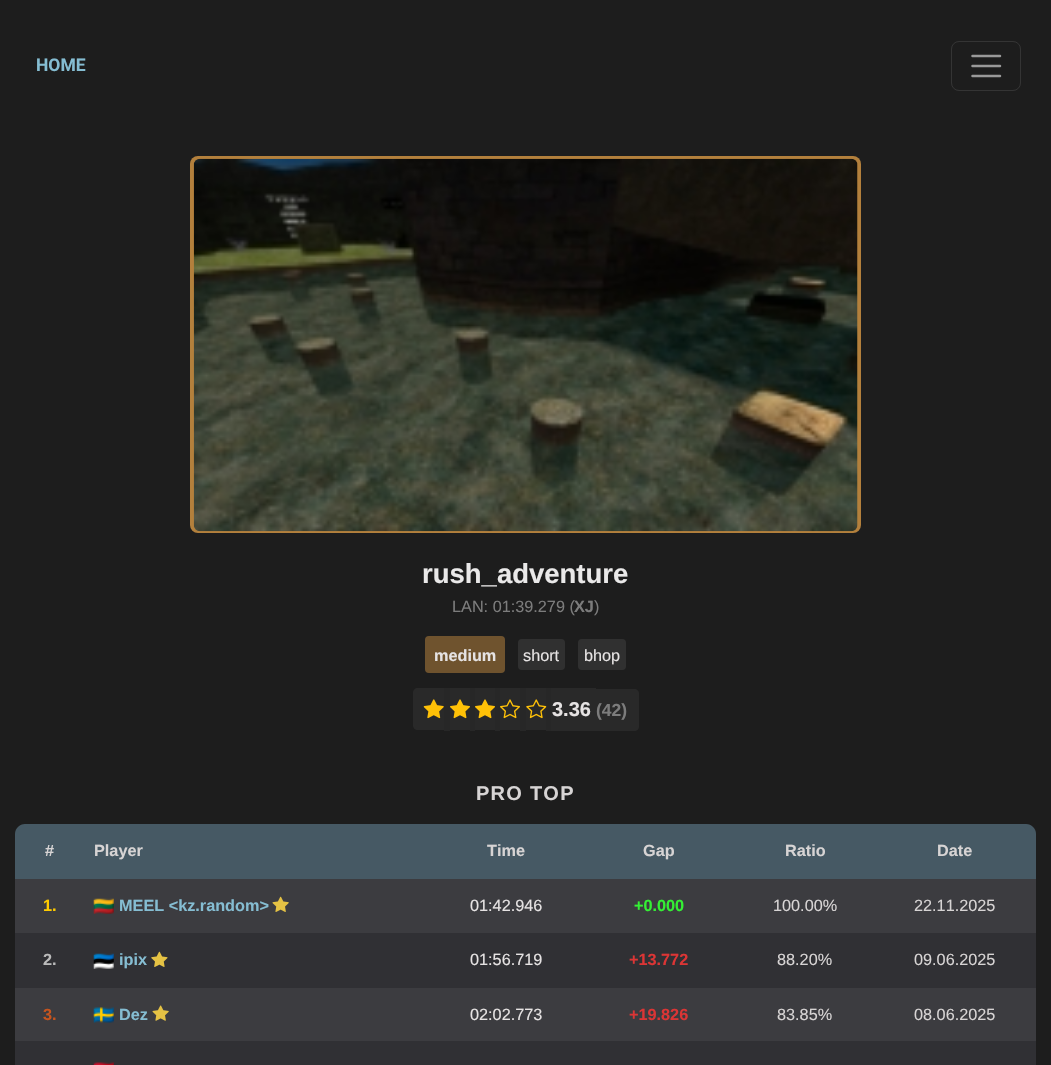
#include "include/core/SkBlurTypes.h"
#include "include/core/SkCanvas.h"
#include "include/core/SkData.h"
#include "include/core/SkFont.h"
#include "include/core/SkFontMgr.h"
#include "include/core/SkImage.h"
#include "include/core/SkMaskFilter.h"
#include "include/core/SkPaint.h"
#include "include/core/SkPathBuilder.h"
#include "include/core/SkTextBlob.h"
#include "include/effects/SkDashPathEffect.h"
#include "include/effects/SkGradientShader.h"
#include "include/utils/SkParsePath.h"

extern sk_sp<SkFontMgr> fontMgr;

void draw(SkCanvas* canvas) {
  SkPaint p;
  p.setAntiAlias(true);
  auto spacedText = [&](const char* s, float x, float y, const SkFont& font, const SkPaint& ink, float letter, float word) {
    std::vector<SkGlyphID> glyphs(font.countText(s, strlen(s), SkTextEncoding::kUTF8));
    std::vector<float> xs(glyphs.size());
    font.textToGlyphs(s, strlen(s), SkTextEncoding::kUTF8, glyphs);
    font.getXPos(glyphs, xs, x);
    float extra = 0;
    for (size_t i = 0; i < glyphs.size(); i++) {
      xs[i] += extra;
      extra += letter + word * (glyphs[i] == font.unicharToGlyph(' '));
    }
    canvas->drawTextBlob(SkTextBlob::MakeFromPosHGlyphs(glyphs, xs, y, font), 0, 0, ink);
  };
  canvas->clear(SkColorSetRGB(29, 29, 29));
  p.setStyle(SkPaint::kStroke_Style);
  p.setStrokeWidth(1);
  p.setColor(SkColorSetRGB(52, 52, 52));
  canvas->drawRoundRect(SkRect::MakeLTRB(951.5f, 41.5f, 1020.5f, 90.5f), 7.5f, 7.5f, p);
  p.setStrokeWidth(2.5f);
  p.setStrokeCap(SkPaint::kRound_Cap);
  p.setColor(SkColorSetRGB(153, 153, 153));
  canvas->drawPath(SkPathBuilder().moveTo(972.5f, 56).lineTo(1000, 56).moveTo(972.5f, 66).lineTo(1000, 66).moveTo(972.5f, 76).lineTo(1000, 76).detach(), p);
  p.setStyle(SkPaint::kFill_Style);
  p.setColor(SkColorSetRGB(179, 128, 60));
  canvas->drawRoundRect(SkRect::MakeLTRB(190, 156, 861, 533), 8, 8, p);
  canvas->drawImageRect(SkImages::DeferredFromEncodedData(SkData::MakeFromFileName("images/1.png")), SkRect::MakeLTRB(193, 158, 858, 532), SkSamplingOptions());
  p.setColor(SkColorSetRGB(111, 83, 46));
  canvas->drawRoundRect(SkRect::MakeLTRB(425, 636, 505, 673), 4, 4, p);
  p.setColor(SkColorSetRGB(48, 48, 48));
  canvas->drawRoundRect(SkRect::MakeLTRB(518, 639, 565, 670), 4, 4, p);
  canvas->drawRoundRect(SkRect::MakeLTRB(578, 639, 626, 670), 4, 4, p);
  p.setColor(SkColorSetRGB(41, 41, 41));
  canvas->drawPath(SkPathBuilder().moveTo(418, 688).lineTo(444, 688).lineTo(444, 730).lineTo(418, 730).cubicTo(415, 730, 413, 728, 413, 725).lineTo(413, 693).cubicTo(413, 690, 415, 688, 418, 688).close().detach(), p);
  p.setColor(SkColorSetRGB(39, 39, 39));
  canvas->drawRect(SkRect::MakeLTRB(444, 688, 450, 731), p);
  p.setColor(SkColorSetARGB(71, 72, 72, 72));
  canvas->drawRect(SkRect::MakeLTRB(450, 688, 470, 730), p);
  p.setColor(SkColorSetRGB(39, 39, 39));
  canvas->drawRect(SkRect::MakeLTRB(470, 688, 475, 731), p);
  p.setColor(SkColorSetARGB(71, 72, 72, 72));
  canvas->drawRect(SkRect::MakeLTRB(475, 688, 495, 730), p);
  p.setColor(SkColorSetRGB(39, 39, 39));
  canvas->drawRect(SkRect::MakeLTRB(495, 688, 500, 731), p);
  p.setColor(SkColorSetARGB(71, 72, 72, 72));
  canvas->drawRect(SkRect::MakeLTRB(500, 688, 520, 730), p);
  p.setColor(SkColorSetRGB(39, 39, 39));
  canvas->drawRect(SkRect::MakeLTRB(520, 688, 526, 731), p);
  p.setColor(SkColorSetARGB(71, 72, 72, 72));
  canvas->drawRect(SkRect::MakeLTRB(526, 688, 546, 730), p);
  p.setColor(SkColorSetRGB(39, 39, 39));
  canvas->drawRect(SkRect::MakeLTRB(546, 688, 551, 731), p);
  p.setColor(SkColorSetARGB(71, 72, 72, 72));
  canvas->drawRect(SkRect::MakeLTRB(551, 688, 596, 731), p);
  canvas->drawPath(SkPathBuilder().moveTo(596, 689).lineTo(634, 689).cubicTo(637, 689, 639, 691, 639, 694).lineTo(639, 726).cubicTo(639, 729, 637, 731, 634, 731).lineTo(596, 731).close().detach(), p);
  canvas->drawImageRect(SkImages::DeferredFromEncodedData(SkData::MakeFromFileName("images/2.png")), SkRect::MakeLTRB(423, 699, 444, 719), SkSamplingOptions());
  canvas->drawImageRect(SkImages::DeferredFromEncodedData(SkData::MakeFromFileName("images/3.png")), SkRect::MakeLTRB(450, 699, 470, 719), SkSamplingOptions());
  canvas->drawImageRect(SkImages::DeferredFromEncodedData(SkData::MakeFromFileName("images/4.png")), SkRect::MakeLTRB(475, 699, 495, 719), SkSamplingOptions());
  canvas->drawImageRect(SkImages::DeferredFromEncodedData(SkData::MakeFromFileName("images/5.png")), SkRect::MakeLTRB(500, 699, 520, 719), SkSamplingOptions());
  canvas->drawImageRect(SkImages::DeferredFromEncodedData(SkData::MakeFromFileName("images/6.png")), SkRect::MakeLTRB(526, 699, 547, 719), SkSamplingOptions());
  p.setColor(SkColorSetRGB(70, 89, 100));
  canvas->drawPath(SkPathBuilder().moveTo(25, 824).lineTo(1026, 824).cubicTo(1031.5f, 824, 1036, 828.5f, 1036, 834).lineTo(1036, 879).lineTo(15, 879).lineTo(15, 834).cubicTo(15, 828.5f, 19.5f, 824, 25, 824).close().detach(), p);
  p.setColor(SkColorSetRGB(60, 60, 64));
  canvas->drawRect(SkRect::MakeLTRB(15, 879, 1036, 933), p);
  canvas->drawImageRect(SkImages::DeferredFromEncodedData(SkData::MakeFromFileName("images/7.png")), SkRect::MakeLTRB(93, 898, 114, 914), SkSamplingOptions());
  canvas->drawImageRect(SkImages::DeferredFromEncodedData(SkData::MakeFromFileName("images/8.png")), SkRect::MakeLTRB(272, 896, 289, 912), SkSamplingOptions());
  p.setColor(SkColorSetRGB(48, 48, 52));
  canvas->drawRect(SkRect::MakeLTRB(15, 933, 1036, 988), p);
  canvas->drawImageRect(SkImages::DeferredFromEncodedData(SkData::MakeFromFileName("images/9.png")), SkRect::MakeLTRB(93, 953, 114, 969), SkSamplingOptions());
  canvas->drawImageRect(SkImages::DeferredFromEncodedData(SkData::MakeFromFileName("images/10.png")), SkRect::MakeLTRB(151, 951, 168, 967), SkSamplingOptions());
  p.setColor(SkColorSetRGB(60, 60, 64));
  canvas->drawRect(SkRect::MakeLTRB(15, 988, 1036, 1041), p);
  canvas->drawImageRect(SkImages::DeferredFromEncodedData(SkData::MakeFromFileName("images/11.png")), SkRect::MakeLTRB(93, 1007, 114, 1023), SkSamplingOptions());
  canvas->drawImageRect(SkImages::DeferredFromEncodedData(SkData::MakeFromFileName("images/12.png")), SkRect::MakeLTRB(152, 1005, 169, 1021), SkSamplingOptions());
  p.setColor(SkColorSetRGB(48, 48, 52));
  canvas->drawRect(SkRect::MakeLTRB(15, 1041, 1036, 1065), p);
  canvas->drawImageRect(SkImages::DeferredFromEncodedData(SkData::MakeFromFileName("images/13.png")), SkRect::MakeLTRB(93, 1062, 114, 1065), SkSamplingOptions());
  SkFont font1(fontMgr->matchFamilyStyle("Roboto", SkFontStyle::Bold()), 17.5f);
  font1.setSubpixel(true);
  p.setColor(SkColorSetRGB(133, 189, 210));
  canvas->drawString("HOME", 36, 71, font1, p);
  SkFont font2(fontMgr->matchFamilyStyle("Liberation Sans", SkFontStyle::Bold()), 27.5f);
  font2.setSubpixel(true);
  p.setColor(SkColorSetRGB(234, 233, 233));
  canvas->drawString("rush_adventure", 422, 583, font2, p);
  SkFont font3(fontMgr->matchFamilyStyle("Liberation Sans", SkFontStyle::Normal()), 16.25f);
  font3.setSubpixel(true);
  p.setColor(SkColorSetRGB(124, 124, 124));
  canvas->drawString("LAN: 01:39.279 (", 452, 612, font3, p);
  SkFont font4(fontMgr->matchFamilyStyle("Liberation Sans", SkFontStyle::Bold()), 16.25f);
  font4.setSubpixel(true);
  canvas->drawString("XJ", 574, 612, font4, p);
  canvas->drawString(")", 594, 612, font3, p);
  p.setColor(SkColorSetRGB(230, 227, 227));
  canvas->drawString("medium", 434, 661, font4, p);
  canvas->drawString("short", 523, 661, font3, p);
  canvas->drawString("bhop", 584, 661, font3, p);
  SkFont font5(fontMgr->matchFamilyStyle("Liberation Sans", SkFontStyle::Bold()), 20);
  font5.setSubpixel(true);
  canvas->drawString("3.36", 552, 716, font5, p);
  SkFont font6(fontMgr->matchFamilyStyle("Liberation Sans", SkFontStyle::Bold()), 17.5f);
  font6.setSubpixel(true);
  p.setColor(SkColorSetRGB(124, 124, 124));
  canvas->drawString("(42)", 596, 716, font6, p);
  p.setColor(SkColorSetRGB(215, 212, 212));
  spacedText("PRO TOP", 476, 800, font5, p, 1.25f, 0);
  canvas->drawString("#", 45, 856, font4, p);
  canvas->drawString("Player", 94, 856, font4, p);
  canvas->drawString("Time", 487, 856, font4, p);
  canvas->drawString("Gap", 643, 856, font4, p);
  canvas->drawString("Ratio", 785, 856, font4, p);
  canvas->drawString("Date", 937, 856, font4, p);
  p.setColor(SkColorSetRGB(255, 203, 0));
  canvas->drawString("1.", 43, 911, font4, p);
  p.setColor(SkColorSetRGB(133, 189, 210));
  canvas->drawString("MEEL <kz.random>", 119, 911, font4, p);
  p.setColor(SkColorSetRGB(230, 227, 227));
  canvas->drawString("01:42.946", 470, 911, font3, p);
  p.setColor(SkColorSetRGB(52, 240, 52));
  canvas->drawString("+0.000", 634, 911, font4, p);
  p.setColor(SkColorSetRGB(215, 212, 212));
  canvas->drawString("100.00%", 773, 911, font3, p);
  canvas->drawString("22.11.2025", 914, 911, font3, p);
  p.setColor(SkColorSetRGB(187, 187, 187));
  canvas->drawString("2.", 43, 965, font4, p);
  p.setColor(SkColorSetRGB(133, 189, 210));
  canvas->drawString("ipix", 119, 965, font4, p);
  p.setColor(SkColorSetRGB(230, 227, 227));
  canvas->drawString("01:56.719", 470, 965, font3, p);
  p.setColor(SkColorSetRGB(220, 53, 53));
  canvas->drawString("+13.772", 629, 965, font4, p);
  p.setColor(SkColorSetRGB(215, 212, 212));
  canvas->drawString("88.20%", 777, 965, font3, p);
  canvas->drawString("09.06.2025", 914, 965, font3, p);
  p.setColor(SkColorSetRGB(198, 84, 30));
  canvas->drawString("3.", 43, 1020, font4, p);
  p.setColor(SkColorSetRGB(133, 189, 210));
  canvas->drawString("Dez", 119, 1020, font4, p);
  p.setColor(SkColorSetRGB(230, 227, 227));
  canvas->drawString("02:02.773", 470, 1020, font3, p);
  p.setColor(SkColorSetRGB(220, 53, 53));
  canvas->drawString("+19.826", 629, 1020, font4, p);
  p.setColor(SkColorSetRGB(215, 212, 212));
  canvas->drawString("83.85%", 777, 1020, font3, p);
  canvas->drawString("08.06.2025", 914, 1020, font3, p);
}
